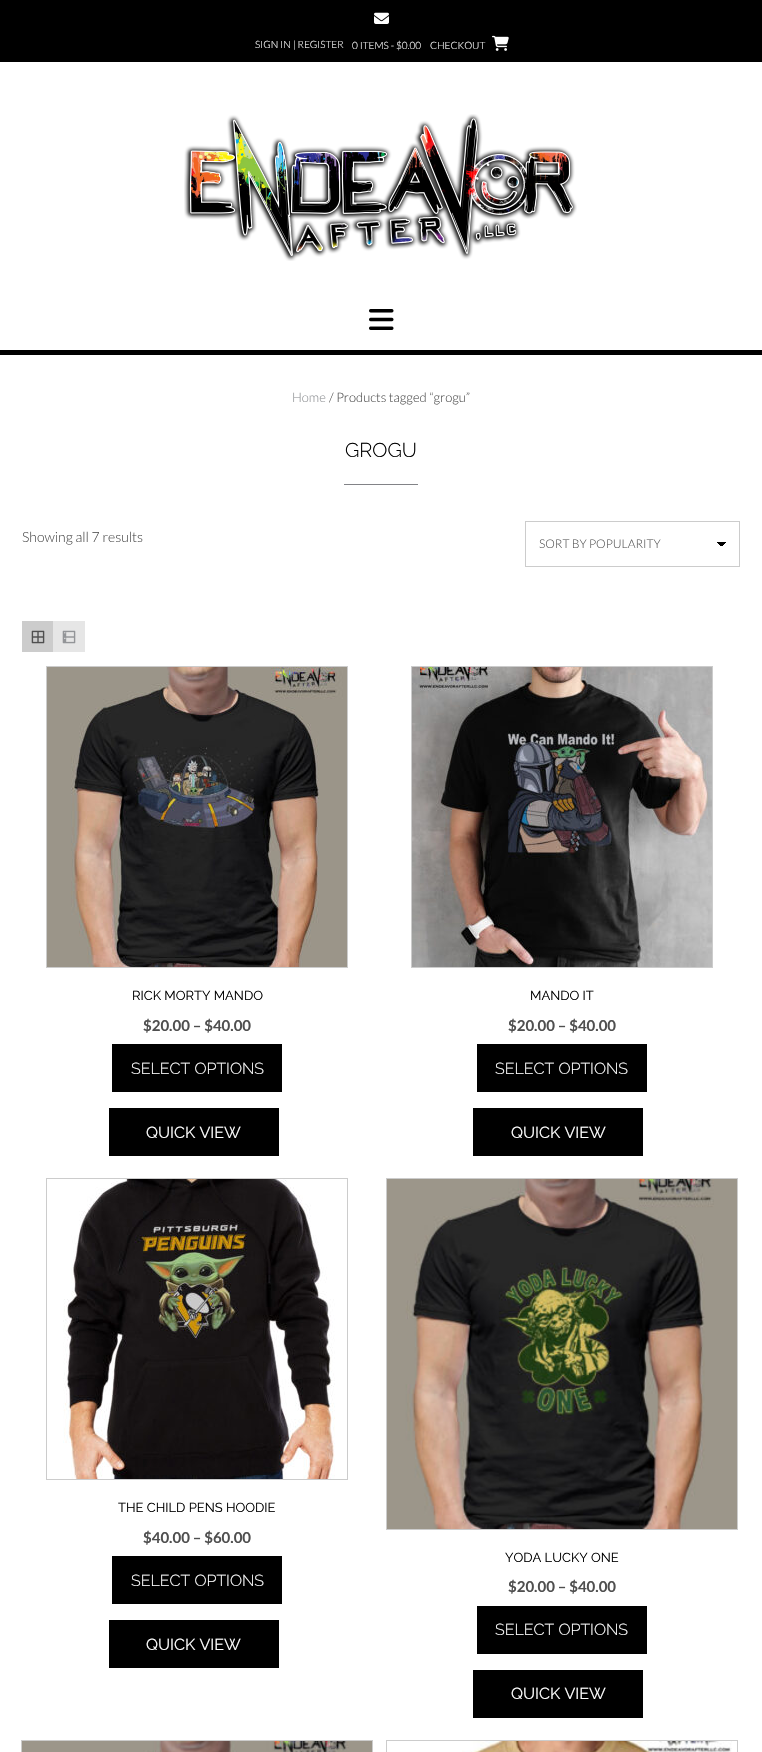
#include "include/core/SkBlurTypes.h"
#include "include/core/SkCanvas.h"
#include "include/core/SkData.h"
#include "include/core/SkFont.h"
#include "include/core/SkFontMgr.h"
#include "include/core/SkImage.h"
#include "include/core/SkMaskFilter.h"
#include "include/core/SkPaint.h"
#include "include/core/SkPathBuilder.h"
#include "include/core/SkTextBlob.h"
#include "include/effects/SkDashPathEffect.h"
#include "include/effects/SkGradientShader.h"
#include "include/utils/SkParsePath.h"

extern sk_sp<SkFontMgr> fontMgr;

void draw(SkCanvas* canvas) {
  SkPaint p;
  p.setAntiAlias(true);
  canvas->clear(SK_ColorWHITE);
  p.setColor(SK_ColorBLACK);
  canvas->drawRect(SkRect::MakeLTRB(0, 0, 762, 62), p);
  canvas->drawImageRect(SkImages::DeferredFromEncodedData(SkData::MakeFromFileName("images/1.png")), SkRect::MakeLTRB(374, 12, 389, 24), SkSamplingOptions());
  canvas->drawImageRect(SkImages::DeferredFromEncodedData(SkData::MakeFromFileName("images/2.png")), SkRect::MakeLTRB(492, 35, 509, 51), SkSamplingOptions());
  canvas->drawImageRect(SkImages::DeferredFromEncodedData(SkData::MakeFromFileName("images/3.png")), SkRect::MakeLTRB(184, 114, 577, 261), SkSamplingOptions());
  canvas->drawRect(SkRect::MakeLTRB(0, 350, 762, 355), p);
  canvas->drawImageRect(SkImages::DeferredFromEncodedData(SkData::MakeFromFileName("images/4.png")), SkRect::MakeLTRB(369, 309, 394, 330), SkSamplingOptions());
  p.setColor(SkColorSetRGB(130, 131, 135));
  canvas->drawRect(SkRect::MakeLTRB(344, 484, 418, 485), p);
  {
    const SkColor colors[] = {SK_ColorBLACK, SK_ColorWHITE};
    const float stops[] = {0.5f, 0.5f};
    const SkPoint ends[] = {{722, 542}, {727, 547}};
    p.setShader(SkGradientShader::MakeLinear(ends, colors, stops, 2, SkTileMode::kClamp));
    p.setAlpha(255);
  }
  canvas->drawRect(SkRect::MakeLTRB(722, 542, 727, 546), p);
  {
    const SkColor colors[] = {SK_ColorWHITE, SK_ColorBLACK};
    const float stops[] = {0.5f, 0.5f};
    const SkPoint ends[] = {{717, 547}, {722, 542}};
    p.setShader(SkGradientShader::MakeLinear(ends, colors, stops, 2, SkTileMode::kClamp));
    p.setAlpha(255);
  }
  canvas->drawRect(SkRect::MakeLTRB(717, 542, 722, 546), p);
  p.setStyle(SkPaint::kStroke_Style);
  p.setStrokeWidth(1);
  p.setShader(nullptr);
  p.setColor(SkColorSetRGB(204, 204, 204));
  canvas->drawRect(SkRect::MakeLTRB(525.5f, 521.5f, 739.5f, 566.5f), p);
  p.setStyle(SkPaint::kFill_Style);
  canvas->drawRect(SkRect::MakeLTRB(22, 621, 53, 652), p);
  canvas->drawImageRect(SkImages::DeferredFromEncodedData(SkData::MakeFromFileName("images/5.png")), SkRect::MakeLTRB(31, 630, 45, 644), SkSamplingOptions());
  p.setColor(SkColorSetRGB(230, 230, 230));
  canvas->drawRect(SkRect::MakeLTRB(53, 621, 85, 652), p);
  canvas->drawImageRect(SkImages::DeferredFromEncodedData(SkData::MakeFromFileName("images/6.png")), SkRect::MakeLTRB(62, 630, 76, 644), SkSamplingOptions());
  p.setStyle(SkPaint::kStroke_Style);
  p.setColor(SkColorSetRGB(204, 204, 204));
  canvas->drawRect(SkRect::MakeLTRB(46.5f, 666.5f, 347.5f, 967.5f), p);
  canvas->drawImageRect(SkImages::DeferredFromEncodedData(SkData::MakeFromFileName("images/7.png")), SkRect::MakeLTRB(47, 667, 347, 967), SkSamplingOptions());
  p.setStyle(SkPaint::kFill_Style);
  p.setColor(SK_ColorBLACK);
  canvas->drawRect(SkRect::MakeLTRB(112, 1044, 282, 1092), p);
  canvas->drawRect(SkRect::MakeLTRB(109, 1108, 279, 1156), p);
  p.setStyle(SkPaint::kStroke_Style);
  p.setColor(SkColorSetRGB(204, 204, 204));
  canvas->drawRect(SkRect::MakeLTRB(411.5f, 666.5f, 712.5f, 967.5f), p);
  canvas->drawImageRect(SkImages::DeferredFromEncodedData(SkData::MakeFromFileName("images/8.png")), SkRect::MakeLTRB(412, 667, 712, 967), SkSamplingOptions());
  p.setStyle(SkPaint::kFill_Style);
  p.setColor(SK_ColorBLACK);
  canvas->drawRect(SkRect::MakeLTRB(477, 1044, 647, 1092), p);
  canvas->drawRect(SkRect::MakeLTRB(473, 1108, 643, 1156), p);
  p.setStyle(SkPaint::kStroke_Style);
  p.setColor(SkColorSetRGB(204, 204, 204));
  canvas->drawRect(SkRect::MakeLTRB(46.5f, 1178.5f, 347.5f, 1479.5f), p);
  canvas->drawImageRect(SkImages::DeferredFromEncodedData(SkData::MakeFromFileName("images/9.png")), SkRect::MakeLTRB(63, 1179, 335, 1479), SkSamplingOptions());
  p.setStyle(SkPaint::kFill_Style);
  p.setColor(SK_ColorBLACK);
  canvas->drawRect(SkRect::MakeLTRB(112, 1556, 282, 1604), p);
  canvas->drawRect(SkRect::MakeLTRB(109, 1620, 279, 1668), p);
  p.setStyle(SkPaint::kStroke_Style);
  p.setColor(SkColorSetRGB(204, 204, 204));
  canvas->drawRect(SkRect::MakeLTRB(386.5f, 1178.5f, 737.5f, 1529.5f), p);
  canvas->drawImageRect(SkImages::DeferredFromEncodedData(SkData::MakeFromFileName("images/10.png")), SkRect::MakeLTRB(387, 1179, 737, 1529), SkSamplingOptions());
  p.setStyle(SkPaint::kFill_Style);
  p.setColor(SK_ColorBLACK);
  canvas->drawRect(SkRect::MakeLTRB(477, 1606, 647, 1654), p);
  canvas->drawRect(SkRect::MakeLTRB(473, 1670, 643, 1718), p);
  p.setStyle(SkPaint::kStroke_Style);
  p.setColor(SkColorSetRGB(204, 204, 204));
  canvas->drawRect(SkRect::MakeLTRB(21.5f, 1740.5f, 372.5f, 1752.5f), p);
  canvas->drawImageRect(SkImages::DeferredFromEncodedData(SkData::MakeFromFileName("images/11.png")), SkRect::MakeLTRB(22, 1741, 372, 1752), SkSamplingOptions());
  canvas->drawRect(SkRect::MakeLTRB(386.5f, 1740.5f, 737.5f, 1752.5f), p);
  canvas->drawImageRect(SkImages::DeferredFromEncodedData(SkData::MakeFromFileName("images/12.png")), SkRect::MakeLTRB(462, 1741, 732, 1752), SkSamplingOptions());
  SkFont font1(fontMgr->matchFamilyStyle("Lato", SkFontStyle(300, SkFontStyle::kNormal_Width, SkFontStyle::kUpright_Slant)), 10);
  font1.setSubpixel(true);
  p.setStyle(SkPaint::kFill_Style);
  p.setColor(SK_ColorWHITE);
  canvas->drawString("SIGN IN | REGISTER", 255, 48, font1, p);
  canvas->drawString("0 ITEMS - $0.00", 352, 49, font1, p);
  canvas->drawString("CHECKOUT", 430, 49, font1, p);
  SkFont font2(fontMgr->matchFamilyStyle("Lato", SkFontStyle(300, SkFontStyle::kNormal_Width, SkFontStyle::kUpright_Slant)), 13);
  font2.setSubpixel(true);
  p.setColor(SkColorSetRGB(147, 149, 152));
  canvas->drawString("Home", 292, 402, font2, p);
  p.setColor(SkColorSetRGB(79, 79, 79));
  canvas->drawString("/ Products tagged “grogu”", 329, 402, font2, p);
  SkFont font3(fontMgr->matchFamilyStyle("Raleway", SkFontStyle(300, SkFontStyle::kNormal_Width, SkFontStyle::kUpright_Slant)), 20);
  font3.setSubpixel(true);
  p.setColor(SK_ColorBLACK);
  canvas->drawString("GROGU", 345, 457, font3, p);
  SkFont font4(fontMgr->matchFamilyStyle("Lato", SkFontStyle(300, SkFontStyle::kNormal_Width, SkFontStyle::kUpright_Slant)), 14);
  font4.setSubpixel(true);
  p.setColor(SkColorSetRGB(79, 79, 79));
  canvas->drawString("Showing all 7 results", 22, 542, font4, p);
  SkFont font5(fontMgr->matchFamilyStyle("Lato", SkFontStyle(300, SkFontStyle::kNormal_Width, SkFontStyle::kUpright_Slant)), 12);
  font5.setSubpixel(true);
  p.setColor(SkColorSetRGB(89, 89, 89));
  canvas->drawString("SORT BY POPULARITY", 539, 548, font5, p);
  SkFont font6(fontMgr->matchFamilyStyle("Raleway", SkFontStyle::Normal()), 13);
  font6.setSubpixel(true);
  p.setColor(SK_ColorBLACK);
  canvas->drawString("RICK MORTY MANDO", 132, 1000, font6, p);
  SkFont font7(fontMgr->matchFamilyStyle("Lato", SkFontStyle::Bold()), 15);
  font7.setSubpixel(true);
  p.setColor(SkColorSetRGB(79, 79, 79));
  canvas->drawString("$20.00 – $40.00", 143, 1031, font7, p);
  SkFont font8(fontMgr->matchFamilyStyle("Raleway", SkFontStyle(300, SkFontStyle::kNormal_Width, SkFontStyle::kUpright_Slant)), 16);
  font8.setSubpixel(true);
  p.setColor(SK_ColorWHITE);
  canvas->drawString("SELECT OPTIONS", 131, 1074, font8, p);
  SkFont font9(fontMgr->matchFamilyStyle("Raleway", SkFontStyle::Normal()), 16);
  font9.setSubpixel(true);
  canvas->drawString("QUICK VIEW", 146, 1138, font9, p);
  p.setColor(SK_ColorBLACK);
  canvas->drawString("MANDO IT", 530, 1000, font6, p);
  p.setColor(SkColorSetRGB(79, 79, 79));
  canvas->drawString("$20.00 – $40.00", 508, 1031, font7, p);
  p.setColor(SK_ColorWHITE);
  canvas->drawString("SELECT OPTIONS", 495, 1074, font8, p);
  canvas->drawString("QUICK VIEW", 511, 1138, font9, p);
  p.setColor(SK_ColorBLACK);
  canvas->drawString("THE CHILD PENS HOODIE", 118, 1512, font6, p);
  p.setColor(SkColorSetRGB(79, 79, 79));
  canvas->drawString("$40.00 – $60.00", 143, 1543, font7, p);
  p.setColor(SK_ColorWHITE);
  canvas->drawString("SELECT OPTIONS", 131, 1586, font8, p);
  canvas->drawString("QUICK VIEW", 146, 1650, font9, p);
  p.setColor(SK_ColorBLACK);
  canvas->drawString("YODA LUCKY ONE", 505, 1562, font6, p);
  p.setColor(SkColorSetRGB(79, 79, 79));
  canvas->drawString("$20.00 – $40.00", 508, 1592, font7, p);
  p.setColor(SK_ColorWHITE);
  canvas->drawString("SELECT OPTIONS", 495, 1635, font8, p);
  canvas->drawString("QUICK VIEW", 511, 1699, font9, p);
}
